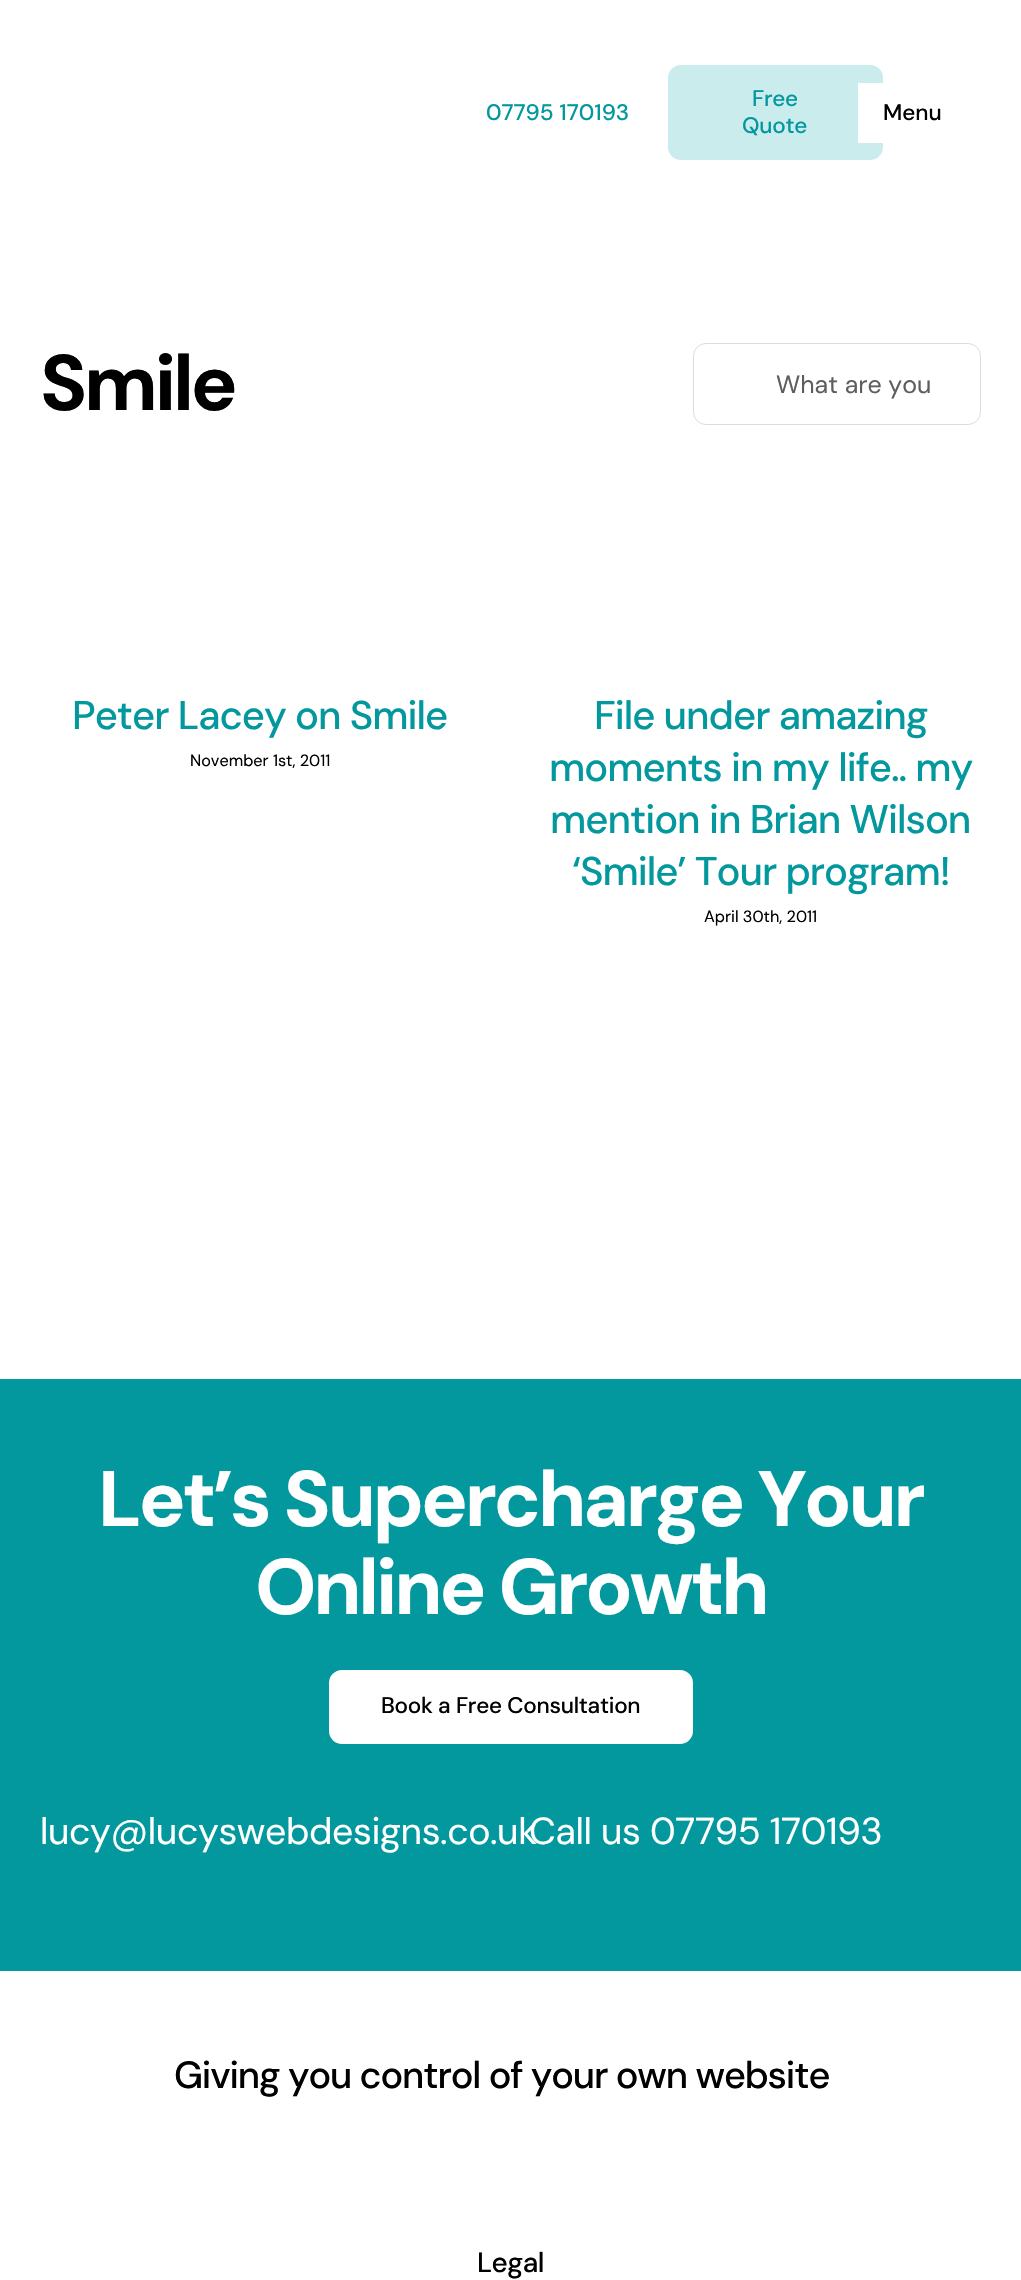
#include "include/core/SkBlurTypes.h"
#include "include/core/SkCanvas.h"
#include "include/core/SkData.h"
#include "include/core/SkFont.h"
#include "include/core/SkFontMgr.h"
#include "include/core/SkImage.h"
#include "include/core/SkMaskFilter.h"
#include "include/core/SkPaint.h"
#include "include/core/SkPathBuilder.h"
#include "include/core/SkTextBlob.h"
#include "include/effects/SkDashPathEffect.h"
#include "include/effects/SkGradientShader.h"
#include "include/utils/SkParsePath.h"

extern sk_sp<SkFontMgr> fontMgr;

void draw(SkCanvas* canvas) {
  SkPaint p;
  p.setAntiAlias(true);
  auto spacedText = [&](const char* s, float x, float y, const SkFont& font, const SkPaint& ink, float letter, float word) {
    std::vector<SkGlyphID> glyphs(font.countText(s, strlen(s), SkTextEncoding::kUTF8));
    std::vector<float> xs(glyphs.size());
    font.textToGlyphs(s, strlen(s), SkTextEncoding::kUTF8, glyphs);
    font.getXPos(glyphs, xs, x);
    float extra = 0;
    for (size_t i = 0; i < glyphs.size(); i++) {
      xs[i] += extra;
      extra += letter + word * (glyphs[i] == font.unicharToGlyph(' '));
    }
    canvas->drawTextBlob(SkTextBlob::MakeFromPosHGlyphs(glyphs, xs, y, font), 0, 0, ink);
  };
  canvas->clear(SK_ColorWHITE);
  p.setColor(SkColorSetRGB(202, 236, 237));
  canvas->drawRoundRect(SkRect::MakeLTRB(668, 65, 883, 160), 13, 13, p);
  p.setColor(SK_ColorWHITE);
  canvas->drawRect(SkRect::MakeLTRB(858, 83, 883, 143), p);
  p.setStyle(SkPaint::kStroke_Style);
  p.setStrokeWidth(1);
  p.setColor(SkColorSetRGB(220, 220, 220));
  canvas->drawRoundRect(SkRect::MakeLTRB(693.5f, 343.5f, 980.5f, 424.5f), 12.5f, 12.5f, p);
  p.setStyle(SkPaint::kFill_Style);
  p.setColor(SkColorSetRGB(3, 152, 158));
  canvas->drawRect(SkRect::MakeLTRB(0, 1379, 1021, 1971), p);
  p.setColor(SK_ColorWHITE);
  canvas->drawRoundRect(SkRect::MakeLTRB(330.5f, 1671.5f, 691.5f, 1742.5f), 11.5f, 11.5f, p);
  p.setStyle(SkPaint::kStroke_Style);
  p.setStrokeWidth(3);
  canvas->drawRoundRect(SkRect::MakeLTRB(330.5f, 1671.5f, 691.5f, 1742.5f), 11.5f, 11.5f, p);
  SkFont font1(fontMgr->matchFamilyStyle("DM Sans", SkFontStyle(500, SkFontStyle::kNormal_Width, SkFontStyle::kUpright_Slant)), 22.5f);
  font1.setSubpixel(true);
  p.setStyle(SkPaint::kFill_Style);
  p.setColor(SkColorSetRGB(3, 152, 158));
  canvas->drawString("07795 170193", 486, 120, font1, p);
  spacedText("Free", 752, 106, font1, p, -0.25f, 0);
  spacedText("Quote", 742, 133, font1, p, -0.25f, 0);
  p.setColor(SK_ColorBLACK);
  canvas->drawString("Menu", 883, 120, font1, p);
  SkFont font2(fontMgr->matchFamilyStyle("DM Sans", SkFontStyle::Bold()), 78.5f);
  font2.setSubpixel(true);
  spacedText("Smile", 40, 410, font2, p, -3.3f, 0);
  SkFont font3(fontMgr->matchFamilyStyle("DM Sans", SkFontStyle::Normal()), 25);
  font3.setSubpixel(true);
  p.setColor(SkColorSetRGB(94, 94, 94));
  canvas->drawString("What are you", 776, 393, font3, p);
  SkFont font4(fontMgr->matchFamilyStyle("DM Sans", SkFontStyle(500, SkFontStyle::kNormal_Width, SkFontStyle::kUpright_Slant)), 40);
  font4.setSubpixel(true);
  p.setColor(SkColorSetRGB(3, 152, 158));
  spacedText("Peter Lacey on Smile", 72, 729, font4, p, -1, 0);
  SkFont font5(fontMgr->matchFamilyStyle("DM Sans", SkFontStyle::Normal()), 16.25f);
  font5.setSubpixel(true);
  p.setColor(SK_ColorBLACK);
  canvas->drawString("November 1st, 2011", 190, 766, font5, p);
  p.setColor(SkColorSetRGB(3, 152, 158));
  spacedText("File under amazing", 594, 729, font4, p, -1, 0);
  spacedText("moments in my life.. my", 549, 781, font4, p, -1, 0);
  spacedText("mention in Brian Wilson", 550, 833, font4, p, -1, 0);
  spacedText("‘Smile’ Tour program!", 572, 885, font4, p, -1, 0);
  p.setColor(SK_ColorBLACK);
  canvas->drawString("April 30th, 2011", 704, 922, font5, p);
  p.setColor(SK_ColorWHITE);
  spacedText("Let’s Supercharge Your", 98, 1526, font2, p, -3.3f, 0);
  spacedText("Online Growth", 255, 1614, font2, p, -3.3f, 0);
  p.setColor(SK_ColorBLACK);
  spacedText("Book a Free Consultation", 381, 1713, font1, p, -0.25f, 0);
  SkFont font6(fontMgr->matchFamilyStyle("DM Sans", SkFontStyle::Normal()), 37.5f);
  font6.setSubpixel(true);
  p.setColor(SK_ColorWHITE);
  spacedText("lucy@lucyswebdesigns.co.uk", 40, 1844, font6, p, -0.4f, 0);
  spacedText("Call us 07795 170193", 529, 1844, font6, p, -0.4f, 0);
  SkFont font7(fontMgr->matchFamilyStyle("DM Sans", SkFontStyle(500, SkFontStyle::kNormal_Width, SkFontStyle::kUpright_Slant)), 37.9f);
  font7.setSubpixel(true);
  p.setColor(SK_ColorBLACK);
  spacedText("Giving you control of your own website", 174, 2088, font7, p, -1.15f, 0);
  SkFont font8(fontMgr->matchFamilyStyle("DM Sans", SkFontStyle(500, SkFontStyle::kNormal_Width, SkFontStyle::kUpright_Slant)), 28);
  font8.setSubpixel(true);
  spacedText("Legal", 477, 2272, font8, p, -0.5f, 0);
}
